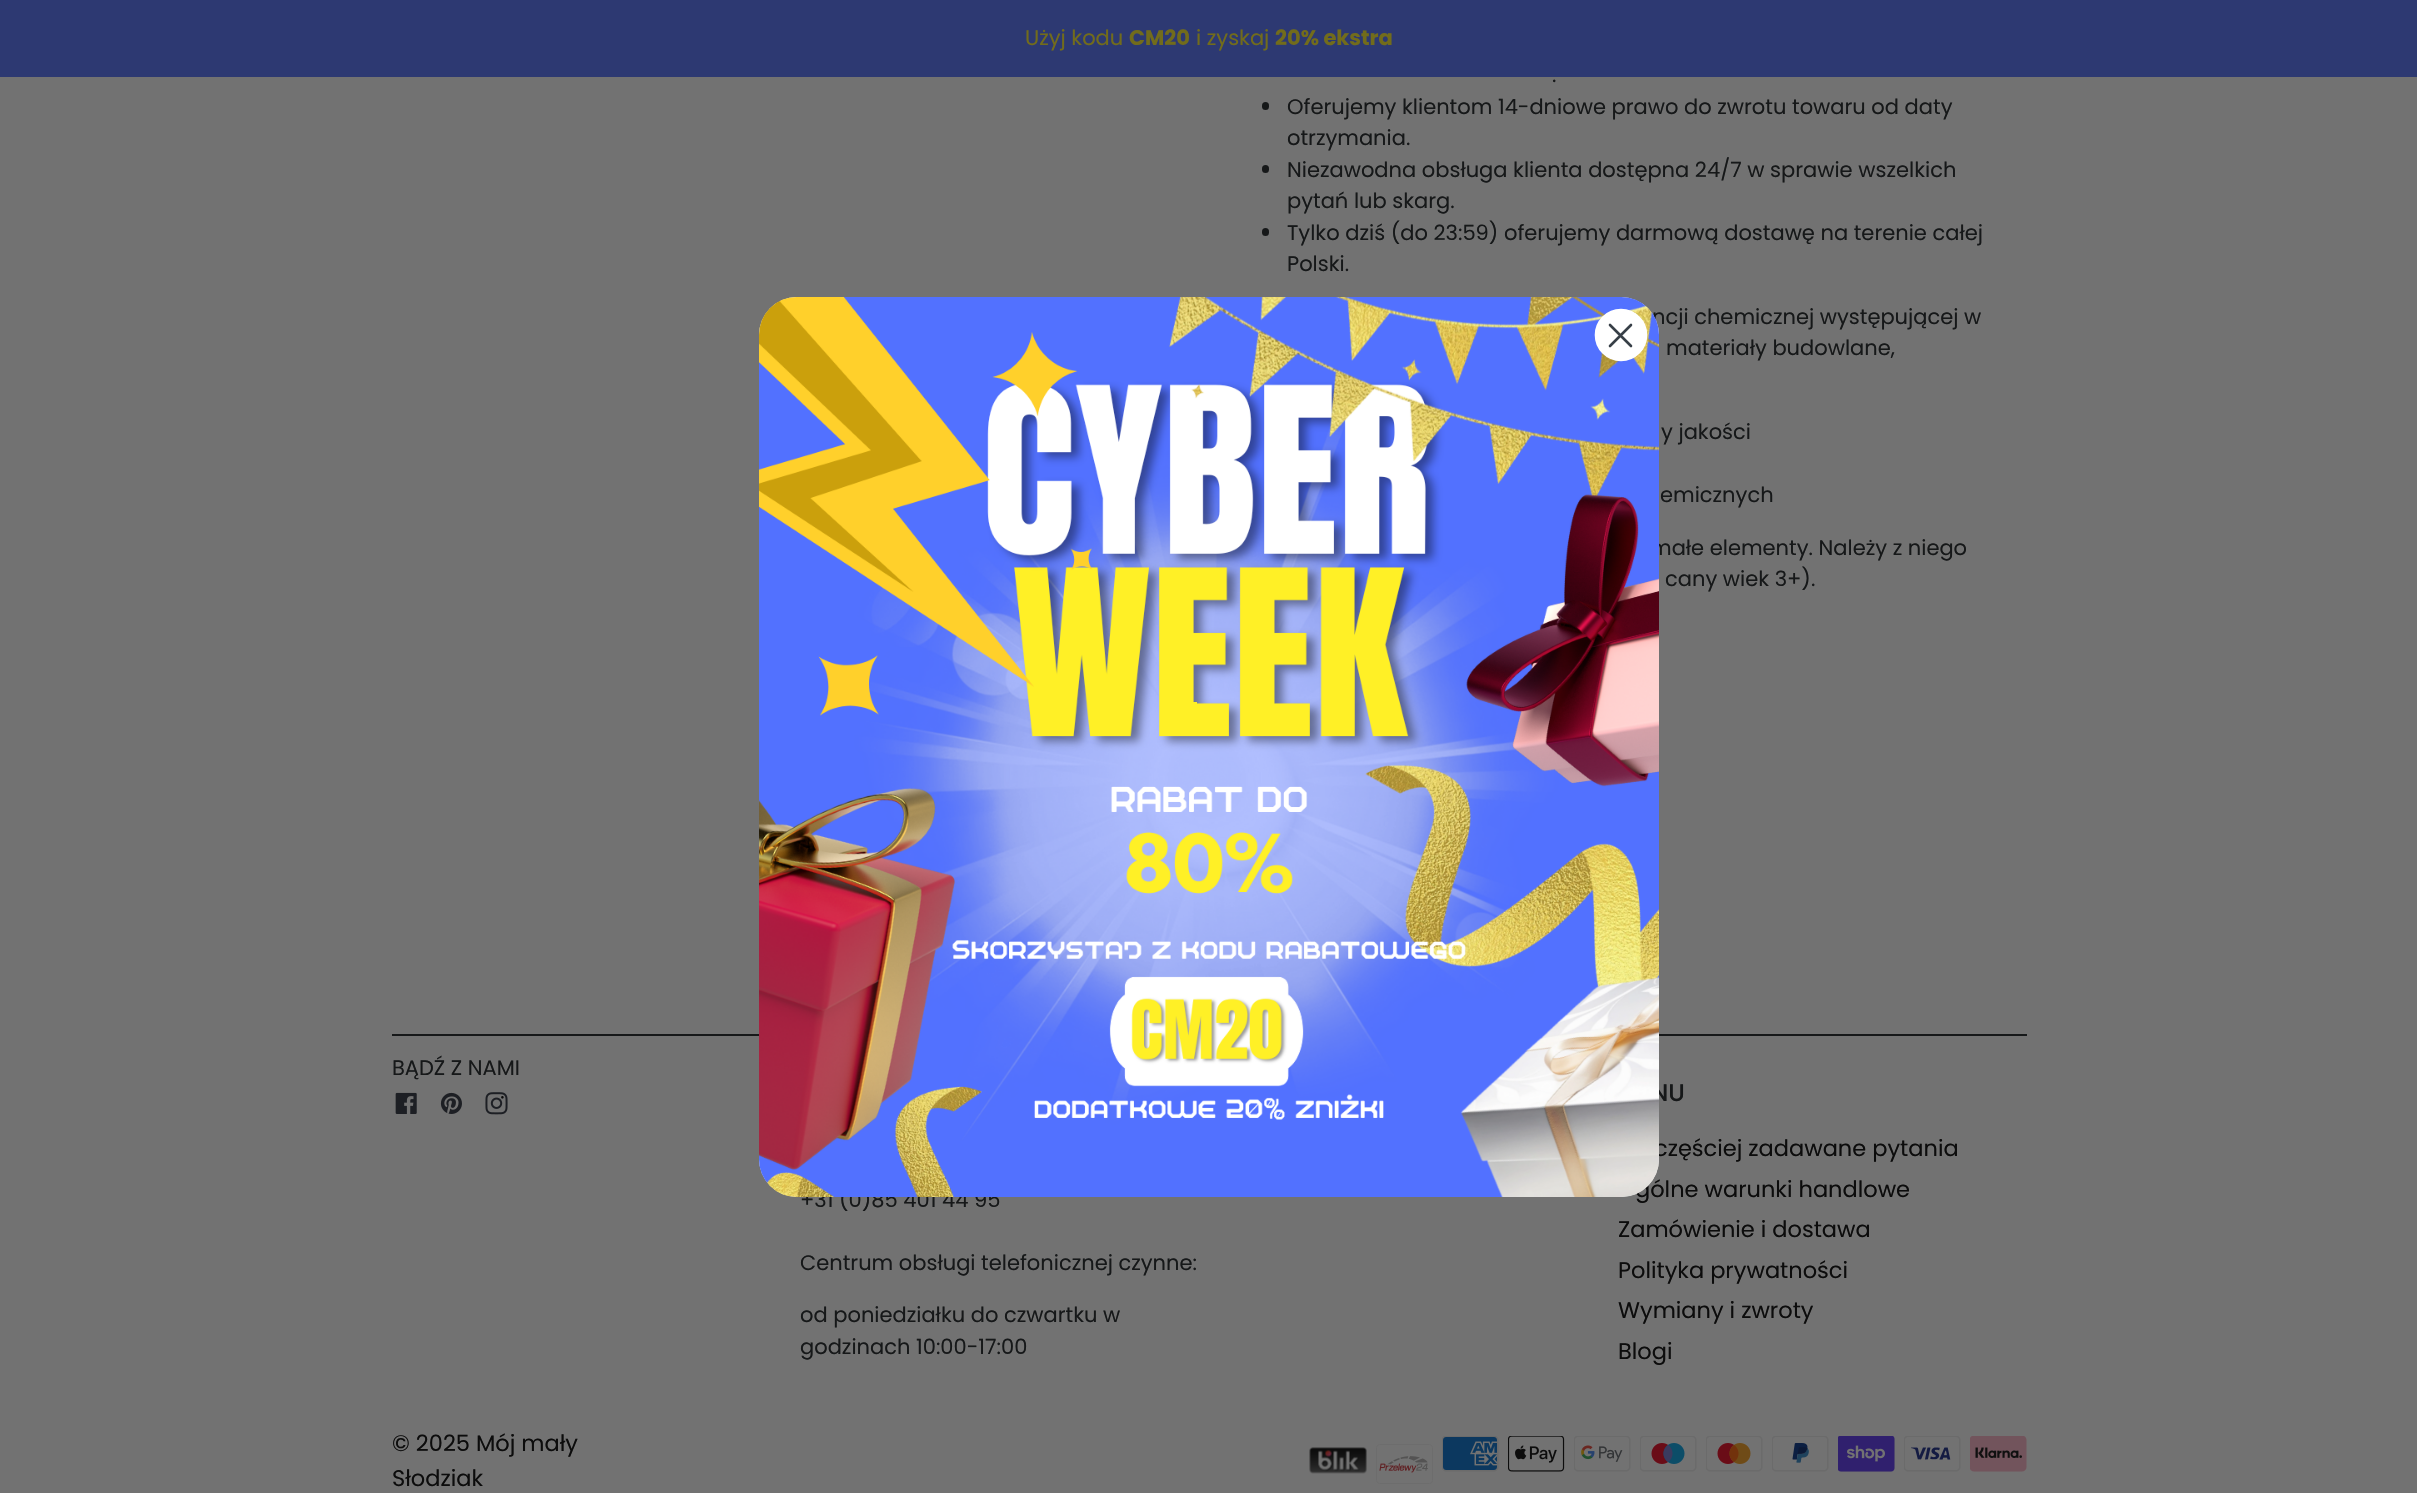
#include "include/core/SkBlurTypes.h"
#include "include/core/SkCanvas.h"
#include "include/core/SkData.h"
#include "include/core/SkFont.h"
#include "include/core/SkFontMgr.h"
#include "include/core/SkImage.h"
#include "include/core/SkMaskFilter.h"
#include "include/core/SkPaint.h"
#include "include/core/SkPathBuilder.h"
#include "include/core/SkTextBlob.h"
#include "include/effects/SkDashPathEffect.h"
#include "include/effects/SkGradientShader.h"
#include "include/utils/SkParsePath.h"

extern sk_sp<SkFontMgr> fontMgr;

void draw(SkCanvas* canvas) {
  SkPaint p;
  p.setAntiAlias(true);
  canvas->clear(SkColorSetRGB(114, 114, 114));
  p.setColor(SkColorSetRGB(45, 57, 114));
  canvas->drawRect(SkRect::MakeLTRB(0, 0, 2417, 77), p);
  p.setColor(SkColorSetRGB(22, 24, 25));
  canvas->drawRoundRect(SkRect::MakeLTRB(1262, 102, 1269, 110), 3.5f, 3.5f, p);
  canvas->drawRoundRect(SkRect::MakeLTRB(1262, 165, 1269, 173), 3.5f, 3.5f, p);
  canvas->drawRoundRect(SkRect::MakeLTRB(1262, 228, 1269, 236), 3.5f, 3.5f, p);
  canvas->drawRect(SkRect::MakeLTRB(392, 1034, 2027, 1036), p);
  canvas->drawImageRect(SkImages::DeferredFromEncodedData(SkData::MakeFromFileName("images/1.png")), SkRect::MakeLTRB(395, 1092, 417, 1114), SkSamplingOptions());
  canvas->drawImageRect(SkImages::DeferredFromEncodedData(SkData::MakeFromFileName("images/2.png")), SkRect::MakeLTRB(440, 1092, 462, 1114), SkSamplingOptions());
  canvas->drawImageRect(SkImages::DeferredFromEncodedData(SkData::MakeFromFileName("images/3.png")), SkRect::MakeLTRB(485, 1092, 508, 1115), SkSamplingOptions());
  canvas->drawImageRect(SkImages::DeferredFromEncodedData(SkData::MakeFromFileName("images/4.png")), SkRect::MakeLTRB(1309, 1447, 1367, 1474), SkSamplingOptions());
  canvas->drawImageRect(SkImages::DeferredFromEncodedData(SkData::MakeFromFileName("images/5.png")), SkRect::MakeLTRB(1376, 1444, 1433, 1484), SkSamplingOptions());
  canvas->drawImageRect(SkImages::DeferredFromEncodedData(SkData::MakeFromFileName("images/6.png")), SkRect::MakeLTRB(1442, 1436, 1499, 1472), SkSamplingOptions());
  canvas->drawImageRect(SkImages::DeferredFromEncodedData(SkData::MakeFromFileName("images/7.png")), SkRect::MakeLTRB(1508, 1436, 1565, 1472), SkSamplingOptions());
  canvas->drawImageRect(SkImages::DeferredFromEncodedData(SkData::MakeFromFileName("images/8.png")), SkRect::MakeLTRB(1574, 1436, 1631, 1472), SkSamplingOptions());
  canvas->drawImageRect(SkImages::DeferredFromEncodedData(SkData::MakeFromFileName("images/9.png")), SkRect::MakeLTRB(1640, 1436, 1697, 1472), SkSamplingOptions());
  canvas->drawImageRect(SkImages::DeferredFromEncodedData(SkData::MakeFromFileName("images/10.png")), SkRect::MakeLTRB(1706, 1436, 1763, 1472), SkSamplingOptions());
  canvas->drawImageRect(SkImages::DeferredFromEncodedData(SkData::MakeFromFileName("images/11.png")), SkRect::MakeLTRB(1772, 1436, 1829, 1472), SkSamplingOptions());
  canvas->drawImageRect(SkImages::DeferredFromEncodedData(SkData::MakeFromFileName("images/12.png")), SkRect::MakeLTRB(1838, 1436, 1895, 1472), SkSamplingOptions());
  canvas->drawImageRect(SkImages::DeferredFromEncodedData(SkData::MakeFromFileName("images/13.png")), SkRect::MakeLTRB(1904, 1436, 1961, 1472), SkSamplingOptions());
  canvas->drawImageRect(SkImages::DeferredFromEncodedData(SkData::MakeFromFileName("images/14.png")), SkRect::MakeLTRB(1970, 1436, 2027, 1472), SkSamplingOptions());
  SkFont font1(fontMgr->matchFamilyStyle("Poppins", SkFontStyle::Normal()), 21);
  font1.setSubpixel(true);
  p.setColor(SkColorSetRGB(114, 108, 27));
  canvas->drawString("Użyj kodu", 1025, 45, font1, p);
  SkFont font2(fontMgr->matchFamilyStyle("Poppins", SkFontStyle::Bold()), 21);
  font2.setSubpixel(true);
  canvas->drawString("CM20", 1129, 45, font2, p);
  canvas->drawString("i zyskaj", 1196, 45, font1, p);
  canvas->drawString("20% ekstra", 1275, 45, font2, p);
  p.setColor(SkColorSetRGB(22, 24, 25));
  canvas->drawString(".", 1552, 82, font1, p);
  canvas->drawString("Oferujemy klientom 14-dniowe prawo do zwrotu towaru od daty", 1287, 114, font1, p);
  canvas->drawString("otrzymania.", 1287, 145, font1, p);
  canvas->drawString("Niezawodna obsługa klienta dostępna 24/7 w sprawie wszelkich", 1287, 177, font1, p);
  canvas->drawString("pytań lub skarg.", 1287, 208, font1, p);
  canvas->drawString("Tylko dziś (do 23:59) oferujemy darmową dostawę na terenie całej", 1287, 240, font1, p);
  canvas->drawString("Polski.", 1287, 271, font1, p);
  canvas->drawString("ncji chemicznej występującej w", 1652, 324, font1, p);
  canvas->drawString("materiały budowlane,", 1666, 355, font1, p);
  canvas->drawString("y jakości", 1661, 439, font1, p);
  canvas->drawString("emicznych", 1660, 502, font1, p);
  canvas->drawString("małe elementy. Należy z niego", 1650, 555, font1, p);
  canvas->drawString("cany wiek 3+).", 1665, 586, font1, p);
  canvas->drawString("BĄDŹ Z NAMI", 392, 1075, font1, p);
  canvas->drawString("+31 (0)85 401 44 95", 800, 1207, font1, p);
  canvas->drawString("Centrum obsługi telefonicznej czynne:", 800, 1270, font1, p);
  canvas->drawString("od poniedziałku do czwartku w", 800, 1322, font1, p);
  canvas->drawString("godzinach 10:00-17:00", 800, 1354, font1, p);
  SkFont font3(fontMgr->matchFamilyStyle("Poppins", SkFontStyle(500, SkFontStyle::kNormal_Width, SkFontStyle::kUpright_Slant)), 24);
  font3.setSubpixel(true);
  canvas->drawString("NU", 1651, 1101, font3, p);
  SkFont font4(fontMgr->matchFamilyStyle("Poppins", SkFontStyle::Normal()), 22.5f);
  font4.setSubpixel(true);
  p.setColor(SkColorSetRGB(12, 12, 12));
  canvas->drawString("częściej zadawane pytania", 1654, 1156, font4, p);
  canvas->drawString("gólne warunki handlowe", 1635, 1197, font4, p);
  canvas->drawString("Zamówienie i dostawa", 1618, 1237, font4, p);
  canvas->drawString("Polityka prywatności", 1618, 1278, font4, p);
  canvas->drawString("Wymiany i zwroty", 1618, 1318, font4, p);
  canvas->drawString("Blogi", 1618, 1359, font4, p);
  canvas->drawString("© 2025 Mój mały", 392, 1451, font4, p);
  canvas->drawString("Słodziak", 392, 1486, font4, p);
  p.setColor(SK_ColorWHITE);
  canvas->drawRoundRect(SkRect::MakeLTRB(759, 297, 1659, 1197), 38, 38, p);
  canvas->drawImageRect(SkImages::DeferredFromEncodedData(SkData::MakeFromFileName("images/15.png")), SkRect::MakeLTRB(759, 297, 1659, 1197), SkSamplingOptions());
  p.setColor(SkColorSetRGB(255, 240, 37));
  canvas->drawRect(SkRect::MakeLTRB(1193, 702, 1197, 704), p);
  p.setColor(SK_ColorWHITE);
  canvas->drawCircle(1621, 335, 25, p);
  p.setStyle(SkPaint::kStroke_Style);
  p.setStrokeWidth(2.6f);
  canvas->drawCircle(1621, 335, 25, p);
  p.setStrokeCap(SkPaint::kRound_Cap);
  p.setStrokeJoin(SkPaint::kRound_Join);
  p.setColor(SkColorSetRGB(55, 63, 71));
  canvas->drawPath(SkPathBuilder().moveTo(1610, 325).lineTo(1631, 346).moveTo(1610, 346).lineTo(1631, 325).close().detach(), p);
}
